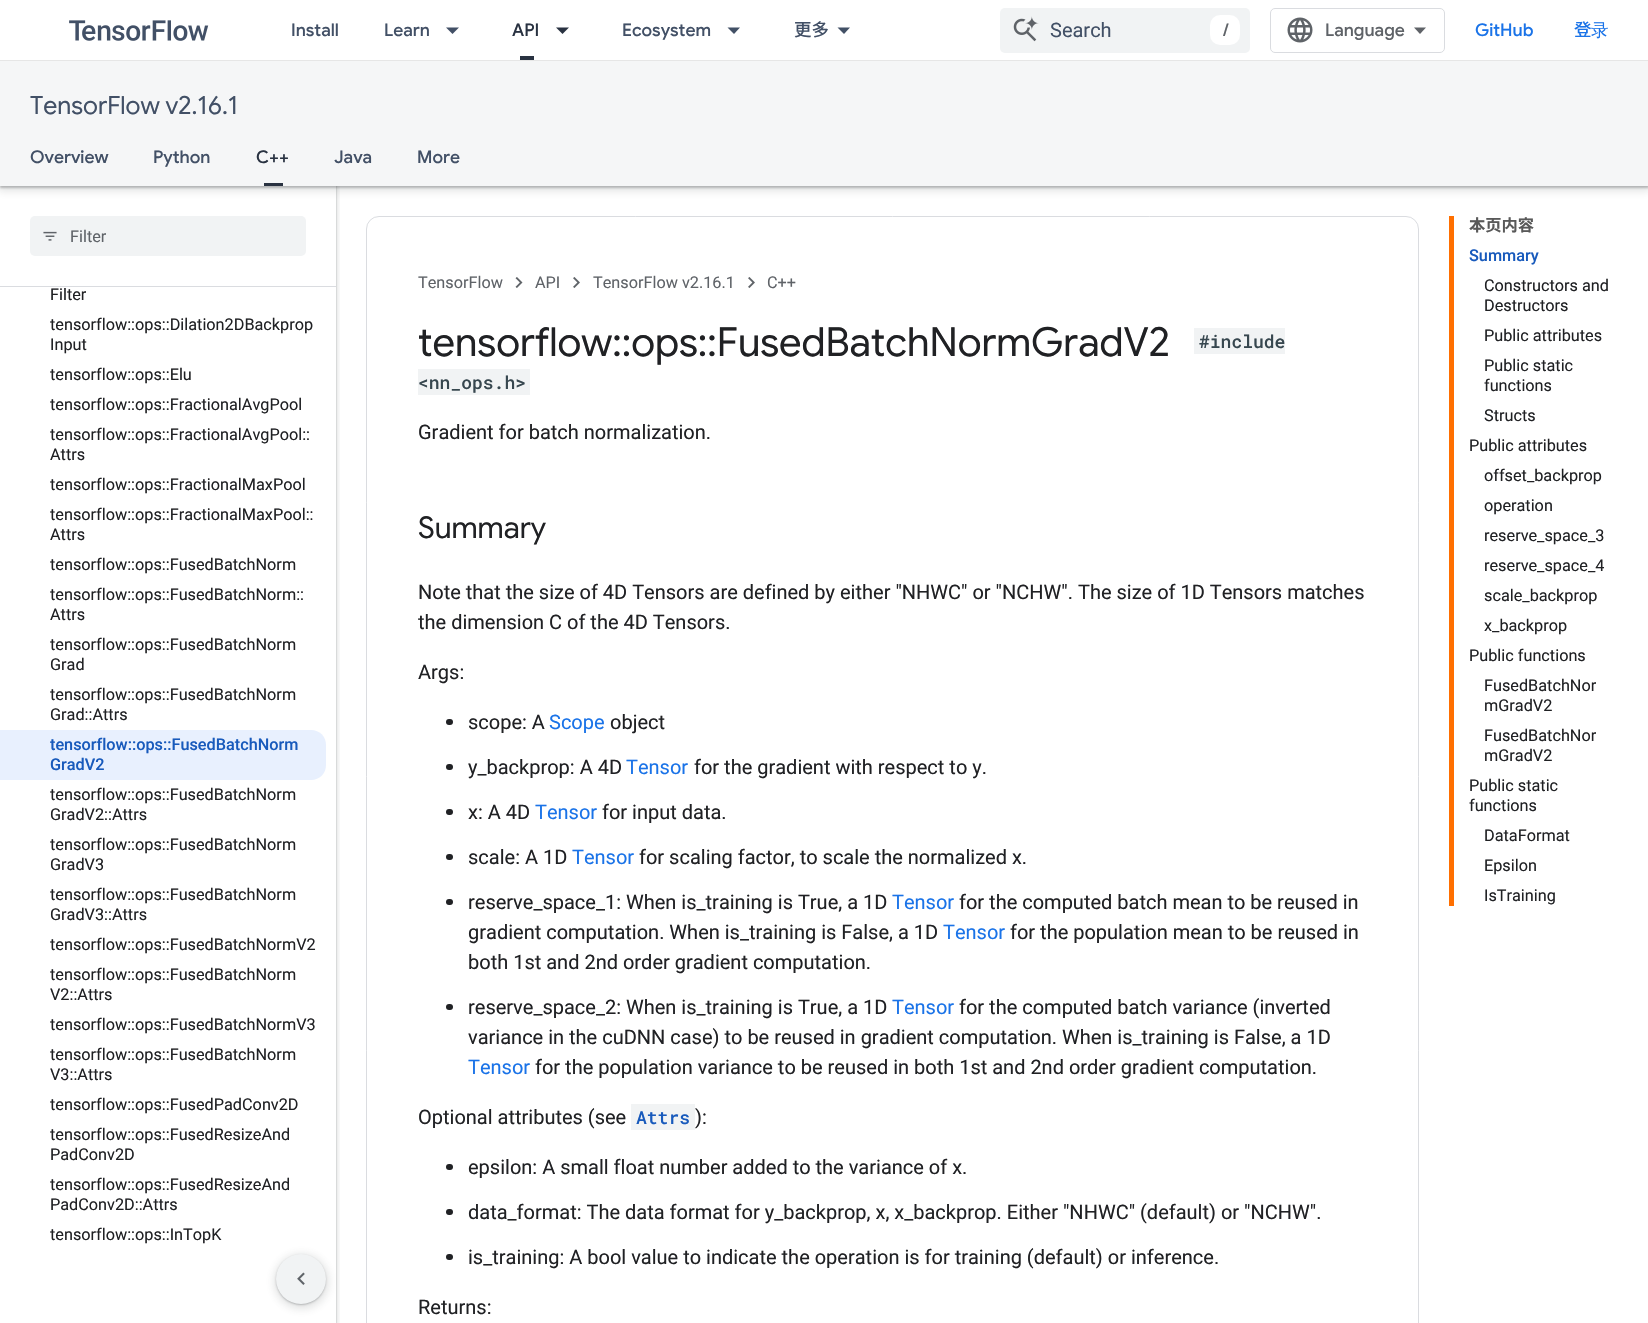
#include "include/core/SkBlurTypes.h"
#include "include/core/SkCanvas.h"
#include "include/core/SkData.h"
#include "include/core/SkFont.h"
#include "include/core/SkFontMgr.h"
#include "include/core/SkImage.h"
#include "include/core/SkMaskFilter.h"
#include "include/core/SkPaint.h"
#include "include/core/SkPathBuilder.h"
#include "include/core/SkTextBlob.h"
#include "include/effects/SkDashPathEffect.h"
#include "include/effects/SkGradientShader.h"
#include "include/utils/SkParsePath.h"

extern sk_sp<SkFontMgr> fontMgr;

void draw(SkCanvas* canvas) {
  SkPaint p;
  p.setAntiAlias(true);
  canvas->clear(SK_ColorWHITE);
  canvas->save();
  canvas->clipRect(SkRect::MakeLTRB(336, 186, 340, 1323));
  p.setColor(SkColorSetARGB(38, 60, 64, 67));
  p.setMaskFilter(SkMaskFilter::MakeBlur(kNormal_SkBlurStyle, 2));
  canvas->drawRect(SkRect::MakeLTRB(-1, 0, 338, 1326), p);
  p.setMaskFilter(nullptr);
  canvas->restore();
  canvas->save();
  canvas->clipRect(SkRect::MakeLTRB(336, 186, 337, 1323));
  p.setColor(SkColorSetARGB(77, 60, 64, 67));
  p.setMaskFilter(SkMaskFilter::MakeBlur(kNormal_SkBlurStyle, 1));
  canvas->drawRect(SkRect::MakeLTRB(0, 1, 336, 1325), p);
  p.setMaskFilter(nullptr);
  canvas->restore();
  p.setColor(SkColorSetARGB(38, 60, 64, 67));
  p.setMaskFilter(SkMaskFilter::MakeBlur(kNormal_SkBlurStyle, 4));
  canvas->drawRect(SkRect::MakeLTRB(-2, 61, 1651, 191), p);
  p.setMaskFilter(nullptr);
  p.setColor(SkColorSetARGB(77, 60, 64, 67));
  p.setMaskFilter(SkMaskFilter::MakeBlur(kNormal_SkBlurStyle, 1));
  canvas->drawRect(SkRect::MakeLTRB(0, 63, 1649, 188), p);
  p.setMaskFilter(nullptr);
  p.setColor(SK_ColorWHITE);
  canvas->drawRect(SkRect::MakeLTRB(0, 0, 1648, 60), p);
  p.setColor(SkColorSetRGB(230, 230, 230));
  canvas->drawRect(SkRect::MakeLTRB(0, 60, 1648, 61), p);
  canvas->drawImageRect(SkImages::DeferredFromEncodedData(SkData::MakeFromFileName("images/1.png")), SkRect::MakeLTRB(69, 20, 209, 41), SkSamplingOptions());
  p.setColor(SkColorSetRGB(66, 80, 102));
  canvas->drawPath(SkPathBuilder().moveTo(446, 27.5f).lineTo(459, 27.5f).lineTo(452.5f, 34).close().detach(), p);
  p.setColor(SkColorSetRGB(41, 50, 65));
  canvas->drawRect(SkRect::MakeLTRB(520, 56, 534, 60), p);
  canvas->drawPath(SkPathBuilder().moveTo(556, 27.5f).lineTo(569, 27.5f).lineTo(562.5f, 34).close().detach(), p);
  p.setColor(SkColorSetRGB(66, 80, 102));
  canvas->drawPath(SkPathBuilder().moveTo(727.5f, 27.5f).lineTo(740, 27.5f).lineTo(734, 34).close().detach(), p);
  canvas->drawPath(SkPathBuilder().moveTo(837.5f, 27.5f).lineTo(850, 27.5f).lineTo(844, 34).close().detach(), p);
  p.setColor(SkColorSetRGB(241, 243, 244));
  canvas->drawRoundRect(SkRect::MakeLTRB(1000, 8, 1250, 53), 5, 5, p);
  canvas->drawImageRect(SkImages::DeferredFromEncodedData(SkData::MakeFromFileName("images/2.png")), SkRect::MakeLTRB(1013, 16, 1039, 42), SkSamplingOptions());
  p.setColor(SK_ColorWHITE);
  canvas->drawRoundRect(SkRect::MakeLTRB(1210, 15, 1240, 45), 10, 10, p);
  p.setStyle(SkPaint::kStroke_Style);
  p.setStrokeWidth(1);
  p.setColor(SkColorSetRGB(218, 220, 224));
  canvas->drawRoundRect(SkRect::MakeLTRB(1270.5f, 8.5f, 1444.5f, 52.5f), 4.5f, 4.5f, p);
  canvas->drawImageRect(SkImages::DeferredFromEncodedData(SkData::MakeFromFileName("images/3.png")), SkRect::MakeLTRB(1287, 17, 1313, 43), SkSamplingOptions());
  p.setStyle(SkPaint::kFill_Style);
  p.setColor(SkColorSetRGB(95, 99, 104));
  canvas->drawPath(SkPathBuilder().moveTo(1420, 34).lineTo(1414, 27.5f).lineTo(1426, 27.5f).close().detach(), p);
  p.setColor(SkColorSetRGB(245, 246, 247));
  canvas->drawRect(SkRect::MakeLTRB(0, 61, 1648, 186), p);
  p.setColor(SkColorSetRGB(41, 50, 65));
  canvas->drawRect(SkRect::MakeLTRB(264, 183, 283, 186), p);
  p.setColor(SkColorSetRGB(218, 220, 224));
  canvas->drawRect(SkRect::MakeLTRB(0, 286, 336, 287), p);
  p.setColor(SkColorSetRGB(241, 243, 244));
  canvas->drawRoundRect(SkRect::MakeLTRB(30, 216, 306, 256), 5, 5, p);
  canvas->drawImageRect(SkImages::DeferredFromEncodedData(SkData::MakeFromFileName("images/4.png")), SkRect::MakeLTRB(43, 231, 57, 241), SkSamplingOptions());
  p.setColor(SkColorSetRGB(232, 240, 254));
  canvas->drawPath(SkPathBuilder().moveTo(0, 730).lineTo(311, 730).cubicTo(319.5f, 730, 326, 736.5f, 326, 745).lineTo(326, 765).cubicTo(326, 773.5f, 319.5f, 780, 311, 780).lineTo(0, 780).close().detach(), p);
  p.setStyle(SkPaint::kStroke_Style);
  p.setColor(SkColorSetRGB(218, 220, 224));
  canvas->drawRoundRect(SkRect::MakeLTRB(366.5f, 216.5f, 1418.5f, 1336.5f), 12.5f, 12.5f, p);
  canvas->drawImageRect(SkImages::DeferredFromEncodedData(SkData::MakeFromFileName("images/5.png")), SkRect::MakeLTRB(515, 277, 523, 288), SkSamplingOptions());
  canvas->drawImageRect(SkImages::DeferredFromEncodedData(SkData::MakeFromFileName("images/6.png")), SkRect::MakeLTRB(573, 277, 580, 288), SkSamplingOptions());
  canvas->drawImageRect(SkImages::DeferredFromEncodedData(SkData::MakeFromFileName("images/6.png")), SkRect::MakeLTRB(748, 277, 755, 288), SkSamplingOptions());
  p.setStyle(SkPaint::kFill_Style);
  p.setColor(SkColorSetRGB(241, 243, 244));
  canvas->drawRect(SkRect::MakeLTRB(1194, 328, 1285, 354), p);
  canvas->drawRect(SkRect::MakeLTRB(418, 369, 530, 395), p);
  p.setColor(SkColorSetRGB(32, 33, 36));
  canvas->drawRoundRect(SkRect::MakeLTRB(446, 719, 453, 725), 3, 3, p);
  canvas->drawRoundRect(SkRect::MakeLTRB(446, 764, 453, 770), 3, 3, p);
  canvas->drawRoundRect(SkRect::MakeLTRB(446, 809, 453, 815), 3, 3, p);
  canvas->drawRoundRect(SkRect::MakeLTRB(446, 854, 453, 860), 3, 3, p);
  canvas->drawRoundRect(SkRect::MakeLTRB(446, 899, 453, 905), 3, 3, p);
  canvas->drawRoundRect(SkRect::MakeLTRB(446, 1004, 453, 1010), 3, 3, p);
  p.setColor(SkColorSetRGB(241, 243, 244));
  canvas->drawRect(SkRect::MakeLTRB(631, 1104, 695, 1130), p);
  p.setColor(SkColorSetRGB(32, 33, 36));
  canvas->drawRoundRect(SkRect::MakeLTRB(446, 1164, 453, 1170), 3, 3, p);
  canvas->drawRoundRect(SkRect::MakeLTRB(446, 1209, 453, 1215), 3, 3, p);
  canvas->drawRoundRect(SkRect::MakeLTRB(446, 1254, 453, 1260), 3, 3, p);
  p.setColor(SkColorSetRGB(255, 111, 0));
  canvas->drawRect(SkRect::MakeLTRB(1449, 216, 1454, 906), p);
  p.setColor(SkColorSetARGB(38, 60, 64, 67));
  p.setMaskFilter(SkMaskFilter::MakeBlur(kNormal_SkBlurStyle, 4));
  canvas->drawRoundRect(SkRect::MakeLTRB(274, 1254, 329, 1309), 27.5f, 27.5f, p);
  p.setMaskFilter(nullptr);
  p.setColor(SkColorSetARGB(77, 60, 64, 67));
  p.setMaskFilter(SkMaskFilter::MakeBlur(kNormal_SkBlurStyle, 1));
  canvas->drawRoundRect(SkRect::MakeLTRB(276, 1255, 326, 1305), 25, 25, p);
  p.setMaskFilter(nullptr);
  p.setColor(SkColorSetRGB(241, 243, 244));
  canvas->drawCircle(301, 1279, 25, p);
  canvas->drawImageRect(SkImages::DeferredFromEncodedData(SkData::MakeFromFileName("images/7.png")), SkRect::MakeLTRB(297, 1272, 305, 1285), SkSamplingOptions());
  SkFont font1(fontMgr->matchFamilyStyle("Google Sans", SkFontStyle(500, SkFontStyle::kNormal_Width, SkFontStyle::kUpright_Slant)), 17.5f);
  font1.setSubpixel(true);
  p.setColor(SkColorSetRGB(66, 80, 102));
  canvas->drawString("Install", 291, 36, font1, p);
  canvas->drawString("Learn", 384, 36, font1, p);
  p.setColor(SkColorSetRGB(41, 50, 65));
  canvas->drawString("API", 512, 36, font1, p);
  p.setColor(SkColorSetRGB(66, 80, 102));
  canvas->drawString("Ecosystem", 622, 36, font1, p);
  SkFont font2(fontMgr->matchFamilyStyle("Noto Sans JP", SkFontStyle(500, SkFontStyle::kNormal_Width, SkFontStyle::kUpright_Slant)), 17.5f);
  font2.setSubpixel(true);
  canvas->drawString("更多", 794, 36, font2, p);
  SkFont font3(fontMgr->matchFamilyStyle("Roboto", SkFontStyle::Normal()), 20);
  font3.setSubpixel(true);
  canvas->drawString("Search", 1050, 37, font3, p);
  p.setColor(SkColorSetRGB(95, 99, 104));
  canvas->drawString("/", 1223, 36, font1, p);
  canvas->drawString("Language", 1325, 36, font1, p);
  p.setColor(SkColorSetRGB(26, 115, 232));
  canvas->drawString("GitHub", 1475, 36, font1, p);
  canvas->drawString("登", 1574, 36, font2, p);
  SkFont font4(fontMgr->matchFamilyStyle("WenQuanYi Zen Hei", SkFontStyle(500, SkFontStyle::kNormal_Width, SkFontStyle::kUpright_Slant)), 17.5f);
  font4.setSubpixel(true);
  canvas->drawString("录", 1591, 36, font4, p);
  SkFont font5(fontMgr->matchFamilyStyle("Google Sans", SkFontStyle::Normal()), 25);
  font5.setSubpixel(true);
  p.setColor(SkColorSetRGB(66, 80, 102));
  canvas->drawString("TensorFlow v2.16.1", 30, 114, font5, p);
  canvas->drawString("Overview", 30, 163, font1, p);
  canvas->drawString("Python", 153, 163, font1, p);
  p.setColor(SkColorSetRGB(41, 50, 65));
  canvas->drawString("C++", 256, 163, font1, p);
  p.setColor(SkColorSetRGB(66, 80, 102));
  canvas->drawString("Java", 334, 163, font1, p);
  canvas->drawString("More", 417, 163, font1, p);
  SkFont font6(fontMgr->matchFamilyStyle("Roboto", SkFontStyle::Normal()), 16.25f);
  font6.setSubpixel(true);
  p.setColor(SkColorSetRGB(95, 99, 104));
  canvas->drawString("Filter", 70, 242, font6, p);
  p.setColor(SkColorSetRGB(32, 33, 36));
  canvas->drawString("Filter", 50, 300, font6, p);
  p.setColor(SK_ColorWHITE);
  canvas->drawRect(SkRect::MakeLTRB(64, 287, 66, 288), p);
  p.setColor(SkColorSetRGB(32, 33, 36));
  canvas->drawString("tensorflow::ops::Dilation2DBackprop", 50, 330, font6, p);
  canvas->drawString("Input", 50, 350, font6, p);
  canvas->drawString("tensorflow::ops::Elu", 50, 380, font6, p);
  canvas->drawString("tensorflow::ops::FractionalAvgPool", 50, 410, font6, p);
  canvas->drawString("tensorflow::ops::FractionalAvgPool::", 50, 440, font6, p);
  canvas->drawString("Attrs", 50, 460, font6, p);
  canvas->drawString("tensorflow::ops::FractionalMaxPool", 50, 490, font6, p);
  canvas->drawString("tensorflow::ops::FractionalMaxPool::", 50, 520, font6, p);
  canvas->drawString("Attrs", 50, 540, font6, p);
  canvas->drawString("tensorflow::ops::FusedBatchNorm", 50, 570, font6, p);
  canvas->drawString("tensorflow::ops::FusedBatchNorm::", 50, 600, font6, p);
  canvas->drawString("Attrs", 50, 620, font6, p);
  canvas->drawString("tensorflow::ops::FusedBatchNorm", 50, 650, font6, p);
  canvas->drawString("Grad", 50, 670, font6, p);
  canvas->drawString("tensorflow::ops::FusedBatchNorm", 50, 700, font6, p);
  canvas->drawString("Grad::Attrs", 50, 720, font6, p);
  SkFont font7(fontMgr->matchFamilyStyle("Roboto", SkFontStyle(500, SkFontStyle::kNormal_Width, SkFontStyle::kUpright_Slant)), 16.25f);
  font7.setSubpixel(true);
  p.setColor(SkColorSetRGB(24, 90, 188));
  canvas->drawString("tensorflow::ops::FusedBatchNorm", 50, 750, font7, p);
  canvas->drawString("GradV2", 50, 770, font7, p);
  p.setColor(SkColorSetRGB(32, 33, 36));
  canvas->drawString("tensorflow::ops::FusedBatchNorm", 50, 800, font6, p);
  canvas->drawString("GradV2::Attrs", 50, 820, font6, p);
  canvas->drawString("tensorflow::ops::FusedBatchNorm", 50, 850, font6, p);
  canvas->drawString("GradV3", 50, 870, font6, p);
  canvas->drawString("tensorflow::ops::FusedBatchNorm", 50, 900, font6, p);
  canvas->drawString("GradV3::Attrs", 50, 920, font6, p);
  canvas->drawString("tensorflow::ops::FusedBatchNormV2", 50, 950, font6, p);
  canvas->drawString("tensorflow::ops::FusedBatchNorm", 50, 980, font6, p);
  canvas->drawString("V2::Attrs", 50, 1000, font6, p);
  canvas->drawString("tensorflow::ops::FusedBatchNormV3", 50, 1030, font6, p);
  canvas->drawString("tensorflow::ops::FusedBatchNorm", 50, 1060, font6, p);
  canvas->drawString("V3::Attrs", 50, 1080, font6, p);
  canvas->drawString("tensorflow::ops::FusedPadConv2D", 50, 1110, font6, p);
  canvas->drawString("tensorflow::ops::FusedResizeAnd", 50, 1140, font6, p);
  canvas->drawString("PadConv2D", 50, 1160, font6, p);
  canvas->drawString("tensorflow::ops::FusedResizeAnd", 50, 1190, font6, p);
  canvas->drawString("PadConv2D::Attrs", 50, 1210, font6, p);
  canvas->drawString("tensorflow::ops::InTopK", 50, 1240, font6, p);
  p.setColor(SkColorSetRGB(95, 99, 104));
  canvas->drawString("TensorFlow", 418, 288, font6, p);
  canvas->drawString("API", 535, 288, font6, p);
  canvas->drawString("TensorFlow v2.16.1", 593, 288, font6, p);
  canvas->drawString("C++", 767, 288, font6, p);
  SkFont font8(fontMgr->matchFamilyStyle("Google Sans", SkFontStyle::Normal()), 40);
  font8.setSubpixel(true);
  p.setColor(SkColorSetRGB(32, 33, 36));
  canvas->drawString("tensorflow::ops::FusedBatchNormGradV2", 418, 356, font8, p);
  SkFont font9(fontMgr->matchFamilyStyle("Roboto Mono", SkFontStyle(500, SkFontStyle::kNormal_Width, SkFontStyle::kUpright_Slant)), 18);
  font9.setSubpixel(true);
  p.setColor(SkColorSetRGB(55, 71, 79));
  canvas->drawString("#include", 1199, 348, font9, p);
  canvas->drawString("<nn_ops.h>", 418, 389, font9, p);
  p.setColor(SkColorSetRGB(32, 33, 36));
  canvas->drawString("Gradient for batch normalization.", 418, 439, font3, p);
  SkFont font10(fontMgr->matchFamilyStyle("Google Sans", SkFontStyle::Normal()), 30);
  font10.setSubpixel(true);
  canvas->drawString("Summary", 418, 538, font10, p);
  canvas->drawString("Note that the size of 4D Tensors are defined by either \"NHWC\" or \"NCHW\". The size of 1D Tensors matches", 418, 599, font3, p);
  canvas->drawString("the dimension C of the 4D Tensors.", 418, 629, font3, p);
  canvas->drawString("Args:", 418, 679, font3, p);
  canvas->drawString("scope: A", 468, 729, font3, p);
  p.setColor(SkColorSetRGB(26, 115, 232));
  canvas->drawString("Scope", 549, 729, font3, p);
  p.setColor(SkColorSetRGB(32, 33, 36));
  canvas->drawString("object", 610, 729, font3, p);
  canvas->drawString("y_backprop: A 4D", 468, 774, font3, p);
  p.setColor(SkColorSetRGB(26, 115, 232));
  canvas->drawString("Tensor", 626, 774, font3, p);
  p.setColor(SkColorSetRGB(32, 33, 36));
  canvas->drawString("for the gradient with respect to y.", 694, 774, font3, p);
  canvas->drawString("x: A 4D", 468, 819, font3, p);
  p.setColor(SkColorSetRGB(26, 115, 232));
  canvas->drawString("Tensor", 535, 819, font3, p);
  p.setColor(SkColorSetRGB(32, 33, 36));
  canvas->drawString("for input data.", 602, 819, font3, p);
  canvas->drawString("scale: A 1D", 468, 864, font3, p);
  p.setColor(SkColorSetRGB(26, 115, 232));
  canvas->drawString("Tensor", 572, 864, font3, p);
  p.setColor(SkColorSetRGB(32, 33, 36));
  canvas->drawString("for scaling factor, to scale the normalized x.", 639, 864, font3, p);
  canvas->drawString("reserve_space_1: When is_training is True, a 1D", 468, 909, font3, p);
  p.setColor(SkColorSetRGB(26, 115, 232));
  canvas->drawString("Tensor", 892, 909, font3, p);
  p.setColor(SkColorSetRGB(32, 33, 36));
  canvas->drawString("for the computed batch mean to be reused in", 959, 909, font3, p);
  canvas->drawString("gradient computation. When is_training is False, a 1D", 468, 939, font3, p);
  p.setColor(SkColorSetRGB(26, 115, 232));
  canvas->drawString("Tensor", 943, 939, font3, p);
  p.setColor(SkColorSetRGB(32, 33, 36));
  canvas->drawString("for the population mean to be reused in", 1010, 939, font3, p);
  canvas->drawString("both 1st and 2nd order gradient computation.", 468, 969, font3, p);
  canvas->drawString("reserve_space_2: When is_training is True, a 1D", 468, 1014, font3, p);
  p.setColor(SkColorSetRGB(26, 115, 232));
  canvas->drawString("Tensor", 892, 1014, font3, p);
  p.setColor(SkColorSetRGB(32, 33, 36));
  canvas->drawString("for the computed batch variance (inverted", 959, 1014, font3, p);
  canvas->drawString("variance in the cuDNN case) to be reused in gradient computation. When is_training is False, a 1D", 468, 1044, font3, p);
  p.setColor(SkColorSetRGB(26, 115, 232));
  canvas->drawString("Tensor", 468, 1074, font3, p);
  p.setColor(SkColorSetRGB(32, 33, 36));
  canvas->drawString("for the population variance to be reused in both 1st and 2nd order gradient computation.", 535, 1074, font3, p);
  canvas->drawString("Optional attributes (see", 418, 1124, font3, p);
  p.setColor(SkColorSetRGB(24, 90, 188));
  canvas->drawString("Attrs", 636, 1124, font9, p);
  p.setColor(SkColorSetRGB(32, 33, 36));
  canvas->drawString("):", 695, 1124, font3, p);
  canvas->drawString("epsilon: A small float number added to the variance of x.", 468, 1174, font3, p);
  canvas->drawString("data_format: The data format for y_backprop, x, x_backprop. Either \"NHWC\" (default) or \"NCHW\".", 468, 1219, font3, p);
  canvas->drawString("is_training: A bool value to indicate the operation is for training (default) or inference.", 468, 1264, font3, p);
  canvas->drawString("Returns:", 418, 1314, font3, p);
  SkFont font11(fontMgr->matchFamilyStyle("Noto Sans JP", SkFontStyle::Bold()), 16.25f);
  font11.setSubpixel(true);
  p.setColor(SkColorSetRGB(89, 89, 89));
  canvas->drawString("本页内容", 1469, 231, font11, p);
  p.setColor(SkColorSetRGB(24, 90, 188));
  canvas->drawString("Summary", 1469, 261, font7, p);
  p.setColor(SkColorSetRGB(32, 33, 36));
  canvas->drawString("Constructors and", 1484, 291, font6, p);
  canvas->drawString("Destructors", 1484, 311, font6, p);
  canvas->drawString("Public attributes", 1484, 341, font6, p);
  canvas->drawString("Public static", 1484, 371, font6, p);
  canvas->drawString("functions", 1484, 391, font6, p);
  canvas->drawString("Structs", 1484, 421, font6, p);
  canvas->drawString("Public attributes", 1469, 451, font6, p);
  canvas->drawString("offset_backprop", 1484, 481, font6, p);
  canvas->drawString("operation", 1484, 511, font6, p);
  canvas->drawString("reserve_space_3", 1484, 541, font6, p);
  canvas->drawString("reserve_space_4", 1484, 571, font6, p);
  canvas->drawString("scale_backprop", 1484, 601, font6, p);
  canvas->drawString("x_backprop", 1484, 631, font6, p);
  canvas->drawString("Public functions", 1469, 661, font6, p);
  canvas->drawString("FusedBatchNor", 1484, 691, font6, p);
  canvas->drawString("mGradV2", 1484, 711, font6, p);
  canvas->drawString("FusedBatchNor", 1484, 741, font6, p);
  canvas->drawString("mGradV2", 1484, 761, font6, p);
  canvas->drawString("Public static", 1469, 791, font6, p);
  canvas->drawString("functions", 1469, 811, font6, p);
  canvas->drawString("DataFormat", 1484, 841, font6, p);
  canvas->drawString("Epsilon", 1484, 871, font6, p);
  canvas->drawString("IsTraining", 1484, 901, font6, p);
}
